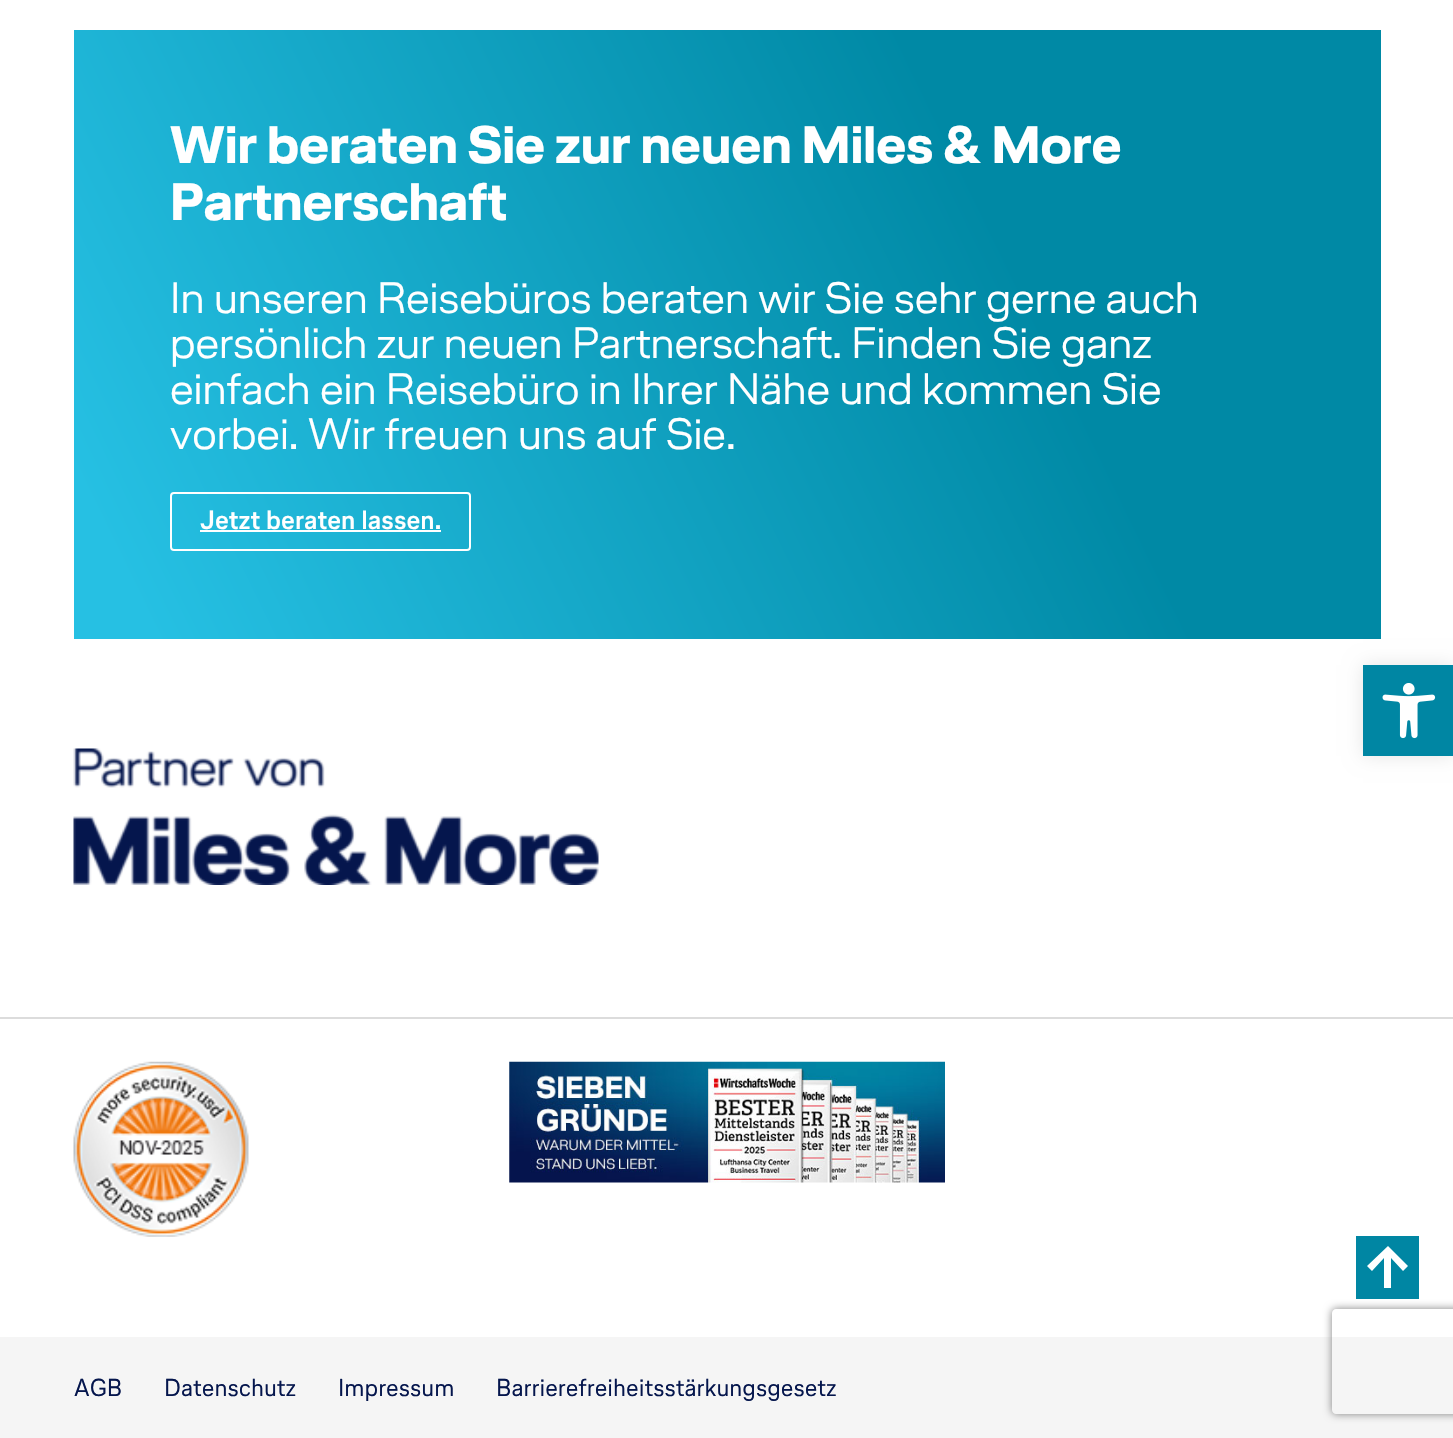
#include "include/core/SkBlurTypes.h"
#include "include/core/SkCanvas.h"
#include "include/core/SkData.h"
#include "include/core/SkFont.h"
#include "include/core/SkFontMgr.h"
#include "include/core/SkImage.h"
#include "include/core/SkMaskFilter.h"
#include "include/core/SkPaint.h"
#include "include/core/SkPathBuilder.h"
#include "include/core/SkTextBlob.h"
#include "include/effects/SkDashPathEffect.h"
#include "include/effects/SkGradientShader.h"
#include "include/utils/SkParsePath.h"

extern sk_sp<SkFontMgr> fontMgr;

void draw(SkCanvas* canvas) {
  SkPaint p;
  p.setAntiAlias(true);
  canvas->clear(SK_ColorWHITE);
  {
    const SkColor colors[] = {SkColorSetRGB(0, 137, 165), SkColorSetRGB(38, 192, 227)};
    const float stops[] = {0.3f, 0.95f};
    const SkPoint ends[] = {{1375, 18}, {79, 650}};
    p.setShader(SkGradientShader::MakeLinear(ends, colors, stops, 2, SkTileMode::kClamp));
    p.setAlpha(255);
  }
  canvas->drawRect(SkRect::MakeLTRB(74, 30, 1381, 639), p);
  p.setStyle(SkPaint::kStroke_Style);
  p.setStrokeWidth(2);
  p.setShader(nullptr);
  p.setColor(SK_ColorWHITE);
  canvas->drawRoundRect(SkRect::MakeLTRB(171, 493, 470, 550), 3, 3, p);
  p.setStyle(SkPaint::kFill_Style);
  canvas->drawRect(SkRect::MakeLTRB(200, 530, 441, 532), p);
  canvas->drawImageRect(SkImages::DeferredFromEncodedData(SkData::MakeFromFileName("images/1.png")), SkRect::MakeLTRB(73, 748, 599, 885), SkSamplingOptions());
  p.setColor(SkColorSetRGB(220, 220, 220));
  canvas->drawRect(SkRect::MakeLTRB(0, 1017, 1453, 1019), p);
  canvas->drawImageRect(SkImages::DeferredFromEncodedData(SkData::MakeFromFileName("images/2.png")), SkRect::MakeLTRB(73, 1061, 249, 1237), SkSamplingOptions());
  canvas->drawImageRect(SkImages::DeferredFromEncodedData(SkData::MakeFromFileName("images/3.png")), SkRect::MakeLTRB(509, 1061, 945, 1183), SkSamplingOptions());
  p.setColor(SkColorSetRGB(245, 245, 245));
  canvas->drawRect(SkRect::MakeLTRB(0, 1337, 1453, 1438), p);
  canvas->save();
  canvas->clipPath(SkPathBuilder(SkPathFillType::kEvenOdd).moveTo(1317, 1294).lineTo(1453, 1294).lineTo(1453, 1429).lineTo(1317, 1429).close().moveTo(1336, 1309).lineTo(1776, 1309).cubicTo(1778, 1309, 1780, 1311, 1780, 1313).lineTo(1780, 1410).cubicTo(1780, 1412, 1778, 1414, 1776, 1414).lineTo(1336, 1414).cubicTo(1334, 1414, 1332, 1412, 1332, 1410).lineTo(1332, 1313).cubicTo(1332, 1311, 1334, 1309, 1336, 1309).close().detach(), true);
  p.setColor(SkColorSetRGB(128, 128, 128));
  p.setMaskFilter(SkMaskFilter::MakeBlur(kNormal_SkBlurStyle, 4.5f));
  canvas->drawRoundRect(SkRect::MakeLTRB(1332, 1309, 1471, 1414), 4, 4, p);
  p.setMaskFilter(nullptr);
  canvas->restore();
  p.setColor(SkColorSetRGB(0, 134, 163));
  canvas->drawRect(SkRect::MakeLTRB(1356, 1236, 1419, 1299), p);
  p.setColor(SK_ColorWHITE);
  canvas->drawPath(SkPathBuilder().moveTo(1388, 1246).lineTo(1367, 1266).lineTo(1372, 1271).lineTo(1384, 1258).lineTo(1384, 1288).lineTo(1391, 1288).lineTo(1391, 1258).lineTo(1403, 1271).lineTo(1408, 1266).lineTo(1388, 1246).detach(), p);
  p.setColor(SkColorSetARGB(26, 0, 0, 0));
  p.setMaskFilter(SkMaskFilter::MakeBlur(kNormal_SkBlurStyle, 9));
  canvas->drawRect(SkRect::MakeLTRB(1363, 665, 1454, 756), p);
  p.setMaskFilter(nullptr);
  p.setColor(SkColorSetRGB(0, 134, 163));
  canvas->drawRect(SkRect::MakeLTRB(1363, 665, 1453, 756), p);
  canvas->drawImageRect(SkImages::DeferredFromEncodedData(SkData::MakeFromFileName("images/4.png")), SkRect::MakeLTRB(1382, 683, 1436, 739), SkSamplingOptions());
  SkFont font1(fontMgr->matchFamilyStyle("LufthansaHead", SkFontStyle::Bold()), 52.5f);
  font1.setSubpixel(true);
  p.setColor(SK_ColorWHITE);
  canvas->drawString("Wir beraten Sie zur neuen Miles & More", 170, 163, font1, p);
  canvas->drawString("Partnerschaft", 170, 220, font1, p);
  SkFont font2(fontMgr->matchFamilyStyle("LufthansaHead", SkFontStyle(300, SkFontStyle::kNormal_Width, SkFontStyle::kUpright_Slant)), 43.75f);
  font2.setSubpixel(true);
  canvas->drawString("In unseren Reisebüros beraten wir Sie sehr gerne auch", 170, 313, font2, p);
  canvas->drawString("persönlich zur neuen Partnerschaft. Finden Sie ganz", 170, 358, font2, p);
  canvas->drawString("einfach ein Reisebüro in Ihrer Nähe und kommen Sie", 170, 404, font2, p);
  canvas->drawString("vorbei. Wir freuen uns auf Sie.", 170, 449, font2, p);
  SkFont font3(fontMgr->matchFamilyStyle("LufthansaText", SkFontStyle::Bold()), 26.25f);
  font3.setSubpixel(true);
  canvas->drawString("Jetzt beraten lassen.", 200, 529, font3, p);
  SkFont font4(fontMgr->matchFamilyStyle("LufthansaText", SkFontStyle::Normal()), 24.5f);
  font4.setSubpixel(true);
  p.setColor(SkColorSetRGB(5, 22, 77));
  canvas->drawString("AGB", 74, 1396, font4, p);
  canvas->drawString("Datenschutz", 164, 1396, font4, p);
  canvas->drawString("Impressum", 338, 1396, font4, p);
  canvas->drawString("Barrierefreiheitsstärkungsgesetz", 496, 1396, font4, p);
}
